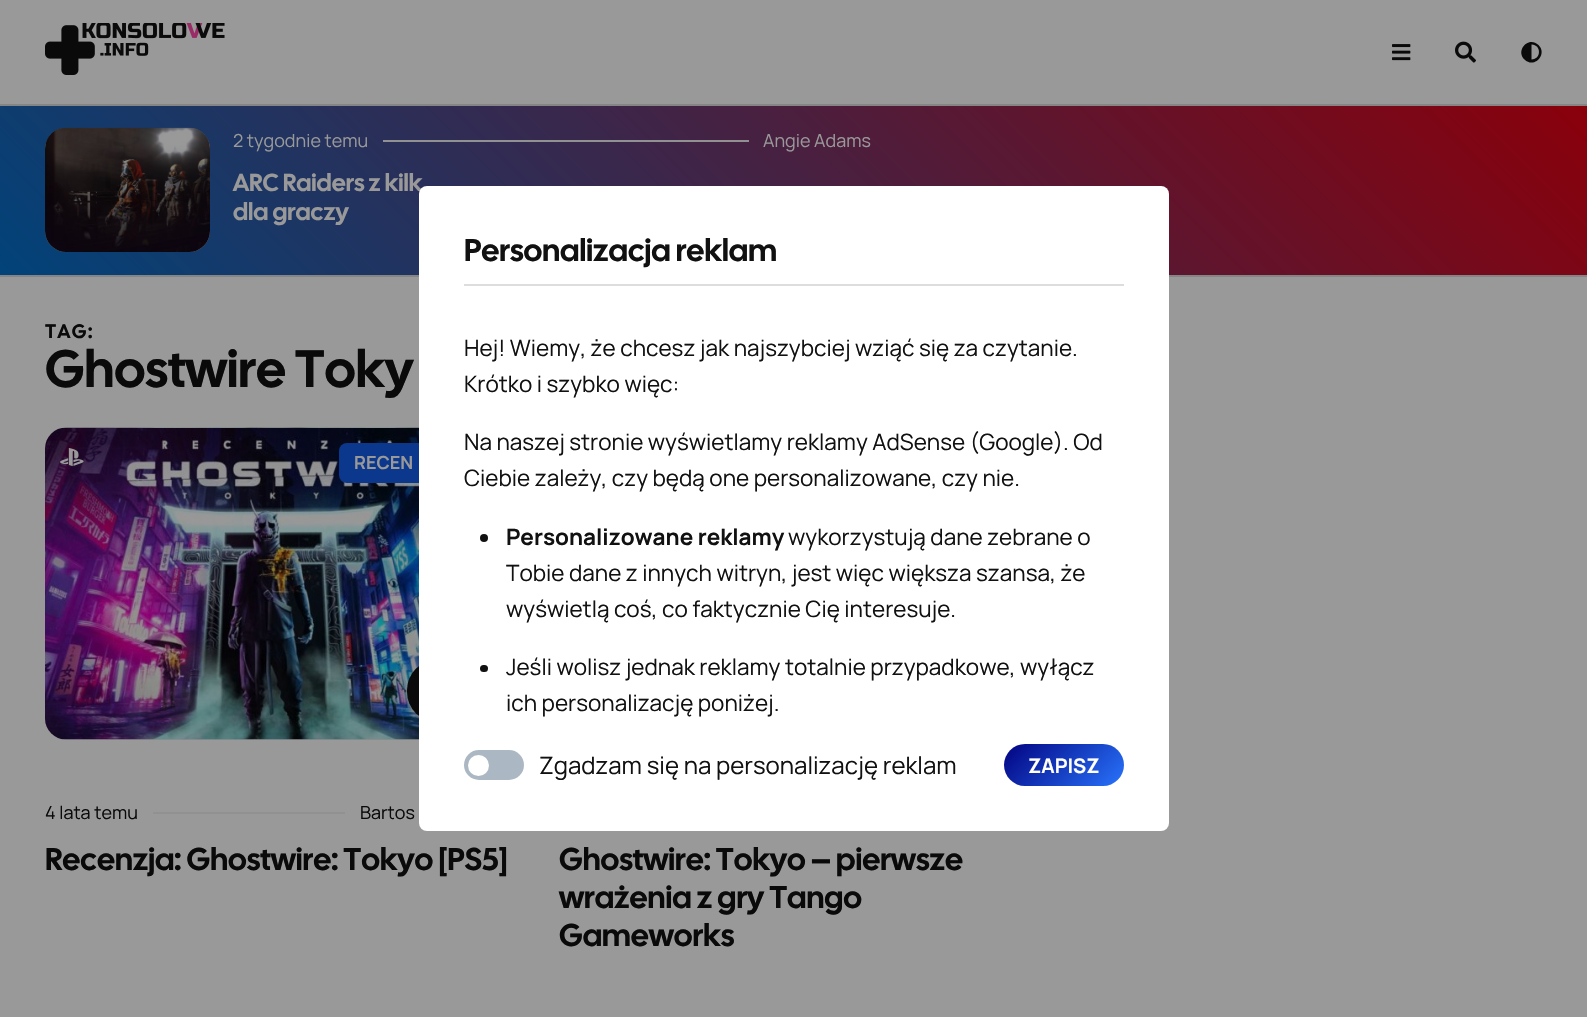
#include "include/core/SkBlurTypes.h"
#include "include/core/SkCanvas.h"
#include "include/core/SkData.h"
#include "include/core/SkFont.h"
#include "include/core/SkFontMgr.h"
#include "include/core/SkImage.h"
#include "include/core/SkMaskFilter.h"
#include "include/core/SkPaint.h"
#include "include/core/SkPathBuilder.h"
#include "include/core/SkTextBlob.h"
#include "include/effects/SkDashPathEffect.h"
#include "include/effects/SkGradientShader.h"
#include "include/utils/SkParsePath.h"

extern sk_sp<SkFontMgr> fontMgr;

void draw(SkCanvas* canvas) {
  SkPaint p;
  p.setAntiAlias(true);
  auto spacedText = [&](const char* s, float x, float y, const SkFont& font, const SkPaint& ink, float letter, float word) {
    std::vector<SkGlyphID> glyphs(font.countText(s, strlen(s), SkTextEncoding::kUTF8));
    std::vector<float> xs(glyphs.size());
    font.textToGlyphs(s, strlen(s), SkTextEncoding::kUTF8, glyphs);
    font.getXPos(glyphs, xs, x);
    float extra = 0;
    for (size_t i = 0; i < glyphs.size(); i++) {
      xs[i] += extra;
      extra += letter + word * (glyphs[i] == font.unicharToGlyph(' '));
    }
    canvas->drawTextBlob(SkTextBlob::MakeFromPosHGlyphs(glyphs, xs, y, font), 0, 0, ink);
  };
  canvas->clear(SkColorSetRGB(153, 153, 153));
  p.setColor(SkColorSetRGB(133, 133, 133));
  canvas->drawRect(SkRect::MakeLTRB(0, 104, 1587, 106), p);
  canvas->drawImageRect(SkImages::DeferredFromEncodedData(SkData::MakeFromFileName("images/1.png")), SkRect::MakeLTRB(45, 23, 225, 75), SkSamplingOptions());
  canvas->drawImageRect(SkImages::DeferredFromEncodedData(SkData::MakeFromFileName("images/2.png")), SkRect::MakeLTRB(1392, 44, 1411, 61), SkSamplingOptions());
  canvas->drawImageRect(SkImages::DeferredFromEncodedData(SkData::MakeFromFileName("images/3.png")), SkRect::MakeLTRB(1455, 41, 1476, 63), SkSamplingOptions());
  p.setColor(SkColorSetRGB(10, 10, 10));
  canvas->drawPath(SkPathBuilder().moveTo(1524.5f, 59.5f).cubicTo(1515, 50, 1529, 35.5f, 1538.5f, 45).cubicTo(1548, 54.5f, 1534, 69, 1524.5f, 59.5f).close().moveTo(1531.5f, 59.5f).cubicTo(1541.5f, 59.5f, 1541.5f, 44.5f, 1531.5f, 44.5f).close().detach(), p);
  {
    const SkColor colors[] = {SkColorSetRGB(1, 67, 122), SkColorSetRGB(138, 0, 11)};
    const float stops[] = {0, 1};
    const SkPoint ends[] = {{354, 629}, {1233, -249}};
    p.setShader(SkGradientShader::MakeLinear(ends, colors, stops, 2, SkTileMode::kClamp));
    p.setAlpha(255);
  }
  canvas->drawRect(SkRect::MakeLTRB(0, 106, 1587, 275), p);
  p.setShader(nullptr);
  p.setColor(SkColorSetRGB(133, 133, 133));
  canvas->drawRect(SkRect::MakeLTRB(0, 275, 1587, 277), p);
  p.setColor(SkColorSetRGB(145, 145, 145));
  canvas->drawRoundRect(SkRect::MakeLTRB(45, 128, 210, 252), 21, 21, p);
  canvas->drawImageRect(SkImages::DeferredFromEncodedData(SkData::MakeFromFileName("images/4.png")), SkRect::MakeLTRB(45, 127, 210, 252), SkSamplingOptions());
  canvas->drawRect(SkRect::MakeLTRB(383, 140, 749, 142), p);
  canvas->drawRoundRect(SkRect::MakeLTRB(45, 428, 515, 740), 21, 21, p);
  canvas->drawImageRect(SkImages::DeferredFromEncodedData(SkData::MakeFromFileName("images/5.png")), SkRect::MakeLTRB(45, 427, 419, 740), SkSamplingOptions());
  canvas->drawImageRect(SkImages::DeferredFromEncodedData(SkData::MakeFromFileName("images/6.png")), SkRect::MakeLTRB(60, 448, 84, 467), SkSamplingOptions());
  p.setColor(SkColorSetRGB(10, 10, 10));
  canvas->drawRoundRect(SkRect::MakeLTRB(407, 660, 467, 722), 30, 30, p);
  p.setColor(SkColorSetRGB(11, 56, 141));
  canvas->drawRoundRect(SkRect::MakeLTRB(339, 443, 500, 483), 8, 8, p);
  p.setColor(SkColorSetRGB(145, 145, 145));
  canvas->drawRect(SkRect::MakeLTRB(153, 812, 345, 814), p);
  SkFont font1(fontMgr->matchFamilyStyle("Manrope", SkFontStyle::Normal()), 18);
  font1.setSubpixel(true);
  p.setColor(SkColorSetRGB(153, 153, 153));
  canvas->drawString("2 tygodnie temu", 233, 147, font1, p);
  canvas->drawString("Angie Adams", 763, 147, font1, p);
  SkFont font2(fontMgr->matchFamilyStyle("Cal Sans", SkFontStyle::Normal()), 24.5f);
  font2.setSubpixel(true);
  canvas->drawString("ARC Raiders z kilk", 233, 191, font2, p);
  canvas->drawString("dla graczy", 233, 220, font2, p);
  p.setColor(SK_ColorWHITE);
  canvas->drawRoundRect(SkRect::MakeLTRB(419, 186, 1169, 831), 8, 8, p);
  p.setColor(SkColorSetRGB(221, 221, 221));
  canvas->drawRect(SkRect::MakeLTRB(464, 284, 1124, 286), p);
  SkFont font3(fontMgr->matchFamilyStyle("Cal Sans", SkFontStyle::Normal()), 31.5f);
  font3.setSubpixel(true);
  p.setColor(SkColorSetRGB(17, 17, 17));
  canvas->drawString("Personalizacja reklam", 464, 261, font3, p);
  SkFont font4(fontMgr->matchFamilyStyle("Manrope", SkFontStyle::Normal()), 22.5f);
  font4.setSubpixel(true);
  canvas->drawString("Hej! Wiemy, że chcesz jak najszybciej wziąć się za czytanie.", 464, 356, font4, p);
  canvas->drawString("Krótko i szybko więc:", 464, 392, font4, p);
  canvas->drawString("Na naszej stronie wyświetlamy reklamy AdSense (Google). Od", 464, 450, font4, p);
  canvas->drawString("Ciebie zależy, czy będą one personalizowane, czy nie.", 464, 486, font4, p);
  canvas->drawCircle(484, 538, 4, p);
  SkFont font5(fontMgr->matchFamilyStyle("Manrope", SkFontStyle::Bold()), 22.5f);
  font5.setSubpixel(true);
  canvas->drawString("Personalizowane reklamy", 506, 545, font5, p);
  canvas->drawString("wykorzystują dane zebrane o", 788, 545, font4, p);
  canvas->drawString("Tobie dane z innych witryn, jest więc większa szansa, że", 506, 581, font4, p);
  canvas->drawString("wyświetlą coś, co faktycznie Cię interesuje.", 506, 617, font4, p);
  canvas->drawRoundRect(SkRect::MakeLTRB(480, 665, 488, 672), 3.5f, 3.5f, p);
  canvas->drawString("Jeśli wolisz jednak reklamy totalnie przypadkowe, wyłącz", 506, 675, font4, p);
  canvas->drawString("ich personalizację poniżej.", 506, 711, font4, p);
  p.setColor(SkColorSetRGB(171, 184, 195));
  canvas->drawRoundRect(SkRect::MakeLTRB(464, 750, 524, 780), 15, 15, p);
  p.setColor(SK_ColorWHITE);
  canvas->drawCircle(478.5f, 765.5f, 10.5f, p);
  SkFont font6(fontMgr->matchFamilyStyle("Manrope", SkFontStyle::Normal()), 24);
  font6.setSubpixel(true);
  p.setColor(SkColorSetRGB(17, 17, 17));
  canvas->drawString("Zgadzam się na personalizację reklam", 539, 774, font6, p);
  {
    const SkColor colors[] = {SkColorSetRGB(2, 3, 129), SkColorSetRGB(40, 116, 252)};
    const float stops[] = {0, 1};
    const SkPoint ends[] = {{1023, 725}, {1104, 806}};
    p.setShader(SkGradientShader::MakeLinear(ends, colors, stops, 2, SkTileMode::kClamp));
    p.setAlpha(255);
  }
  canvas->drawRoundRect(SkRect::MakeLTRB(1004, 744, 1124, 786), 21, 21, p);
  SkFont font7(fontMgr->matchFamilyStyle("Manrope", SkFontStyle::Bold()), 20);
  font7.setSubpixel(true);
  p.setShader(nullptr);
  p.setColor(SK_ColorWHITE);
  canvas->drawString("ZAPISZ", 1028, 773, font7, p);
  SkFont font8(fontMgr->matchFamilyStyle("Cal Sans", SkFontStyle::Normal()), 19.5f);
  font8.setSubpixel(true);
  p.setColor(SkColorSetRGB(10, 10, 10));
  spacedText("TAG:", 45, 338, font8, p, 1.5f, 0);
  SkFont font9(fontMgr->matchFamilyStyle("Cal Sans", SkFontStyle::Normal()), 52.5f);
  font9.setSubpixel(true);
  canvas->drawString("Ghostwire Toky", 45, 387, font9, p);
  SkFont font10(fontMgr->matchFamilyStyle("Manrope", SkFontStyle::Bold()), 18);
  font10.setSubpixel(true);
  p.setColor(SkColorSetRGB(153, 153, 153));
  canvas->drawString("RECEN", 354, 469, font10, p);
  p.setColor(SkColorSetRGB(10, 10, 10));
  canvas->drawString("4 lata temu", 45, 819, font1, p);
  canvas->drawString("Bartos", 360, 819, font1, p);
  canvas->drawString("Recenzja: Ghostwire: Tokyo [PS5]", 45, 870, font3, p);
  canvas->drawString("Ghostwire: Tokyo – pierwsze", 559, 870, font3, p);
  canvas->drawString("wrażenia z gry Tango", 559, 908, font3, p);
  canvas->drawString("Gameworks", 559, 946, font3, p);
}
